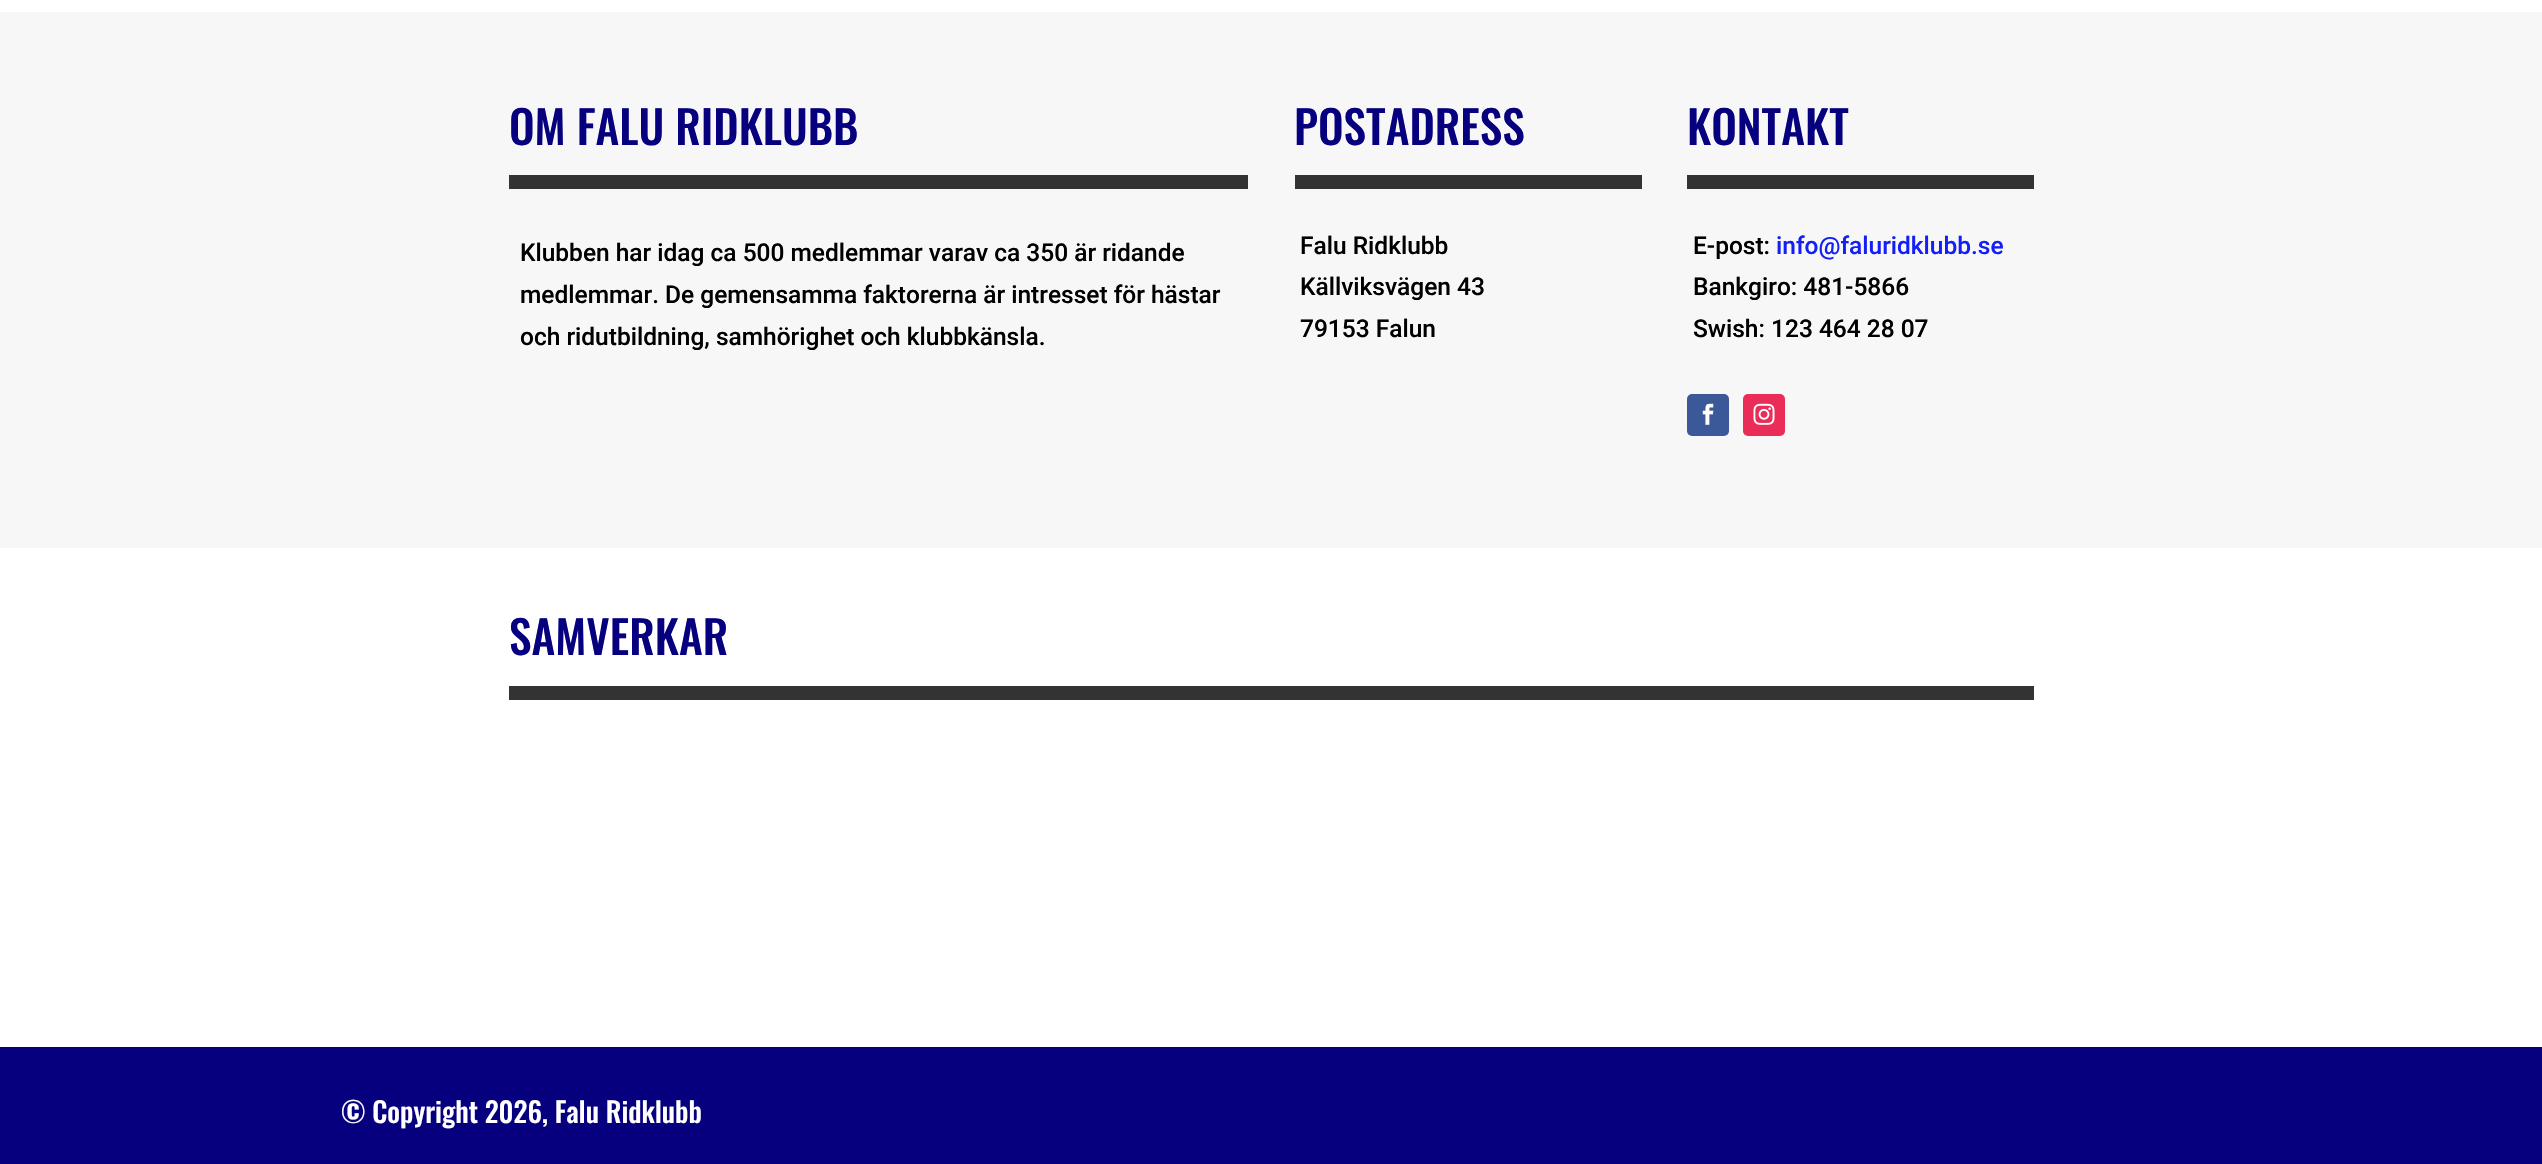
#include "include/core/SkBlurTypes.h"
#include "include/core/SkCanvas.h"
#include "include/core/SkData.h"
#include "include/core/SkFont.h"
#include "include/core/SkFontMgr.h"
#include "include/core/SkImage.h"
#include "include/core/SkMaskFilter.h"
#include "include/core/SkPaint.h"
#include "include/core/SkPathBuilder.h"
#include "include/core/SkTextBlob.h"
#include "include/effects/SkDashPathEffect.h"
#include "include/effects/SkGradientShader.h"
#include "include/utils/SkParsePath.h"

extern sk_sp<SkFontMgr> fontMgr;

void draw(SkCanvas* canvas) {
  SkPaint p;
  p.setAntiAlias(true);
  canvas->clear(SK_ColorWHITE);
  p.setColor(SkColorSetRGB(247, 247, 247));
  canvas->drawRect(SkRect::MakeLTRB(0, 12, 2542, 548), p);
  p.setColor(SkColorSetRGB(51, 51, 51));
  canvas->drawRect(SkRect::MakeLTRB(509, 175, 1248, 189), p);
  canvas->drawRect(SkRect::MakeLTRB(1295, 175, 1642, 189), p);
  canvas->drawRect(SkRect::MakeLTRB(1687, 175, 2034, 189), p);
  p.setColor(SkColorSetRGB(59, 89, 152));
  canvas->drawRoundRect(SkRect::MakeLTRB(1687, 394, 1729, 436), 5, 5, p);
  canvas->drawImageRect(SkImages::DeferredFromEncodedData(SkData::MakeFromFileName("images/1.png")), SkRect::MakeLTRB(1702, 403, 1714, 425), SkSamplingOptions());
  p.setColor(SkColorSetRGB(234, 44, 89));
  canvas->drawRoundRect(SkRect::MakeLTRB(1743, 394, 1785, 436), 5, 5, p);
  canvas->drawImageRect(SkImages::DeferredFromEncodedData(SkData::MakeFromFileName("images/2.png")), SkRect::MakeLTRB(1753, 403, 1775, 425), SkSamplingOptions());
  p.setColor(SkColorSetRGB(51, 51, 51));
  canvas->drawRect(SkRect::MakeLTRB(509, 686, 2034, 700), p);
  p.setColor(SkColorSetRGB(6, 0, 127));
  canvas->drawRect(SkRect::MakeLTRB(0, 1047, 2542, 1164), p);
  SkFont font1(fontMgr->matchFamilyStyle("Oswald", SkFontStyle(500, SkFontStyle::kNormal_Width, SkFontStyle::kUpright_Slant)), 45.5f);
  font1.setSubpixel(true);
  canvas->drawString("OM FALU RIDKLUBB", 509, 145, font1, p);
  SkFont font2(fontMgr->matchFamilyStyle("Roboto", SkFontStyle(500, SkFontStyle::kNormal_Width, SkFontStyle::kUpright_Slant)), 24.5f);
  font2.setSubpixel(true);
  p.setColor(SK_ColorBLACK);
  canvas->drawString("Klubben har idag ca 500 medlemmar varav ca 350 är ridande", 520, 261, font2, p);
  canvas->drawString("medlemmar. De gemensamma faktorerna är intresset för hästar", 520, 303, font2, p);
  canvas->drawString("och ridutbildning, samhörighet och klubbkänsla.", 520, 345, font2, p);
  p.setColor(SkColorSetRGB(6, 0, 127));
  canvas->drawString("POSTADRESS", 1294, 145, font1, p);
  p.setColor(SK_ColorBLACK);
  canvas->drawString("Falu Ridklubb", 1300, 254, font2, p);
  canvas->drawString("Källviksvägen 43", 1300, 295, font2, p);
  canvas->drawString("79153 Falun", 1300, 337, font2, p);
  p.setColor(SkColorSetRGB(6, 0, 127));
  canvas->drawString("KONTAKT", 1687, 145, font1, p);
  p.setColor(SK_ColorBLACK);
  canvas->drawString("E-post:", 1693, 254, font2, p);
  p.setColor(SkColorSetRGB(19, 31, 245));
  canvas->drawString("info@faluridklubb.se", 1776, 254, font2, p);
  p.setColor(SK_ColorBLACK);
  canvas->drawString("Bankgiro: 481-5866", 1693, 295, font2, p);
  canvas->drawString("Swish: 123 464 28 07", 1693, 337, font2, p);
  p.setColor(SkColorSetRGB(6, 0, 127));
  canvas->drawString("SAMVERKAR", 509, 655, font1, p);
  SkFont font3(fontMgr->matchFamilyStyle("Oswald", SkFontStyle(500, SkFontStyle::kNormal_Width, SkFontStyle::kUpright_Slant)), 28);
  font3.setSubpixel(true);
  p.setColor(SK_ColorWHITE);
  canvas->drawString("© Copyright 2026, Falu Ridklubb", 341, 1123, font3, p);
}
